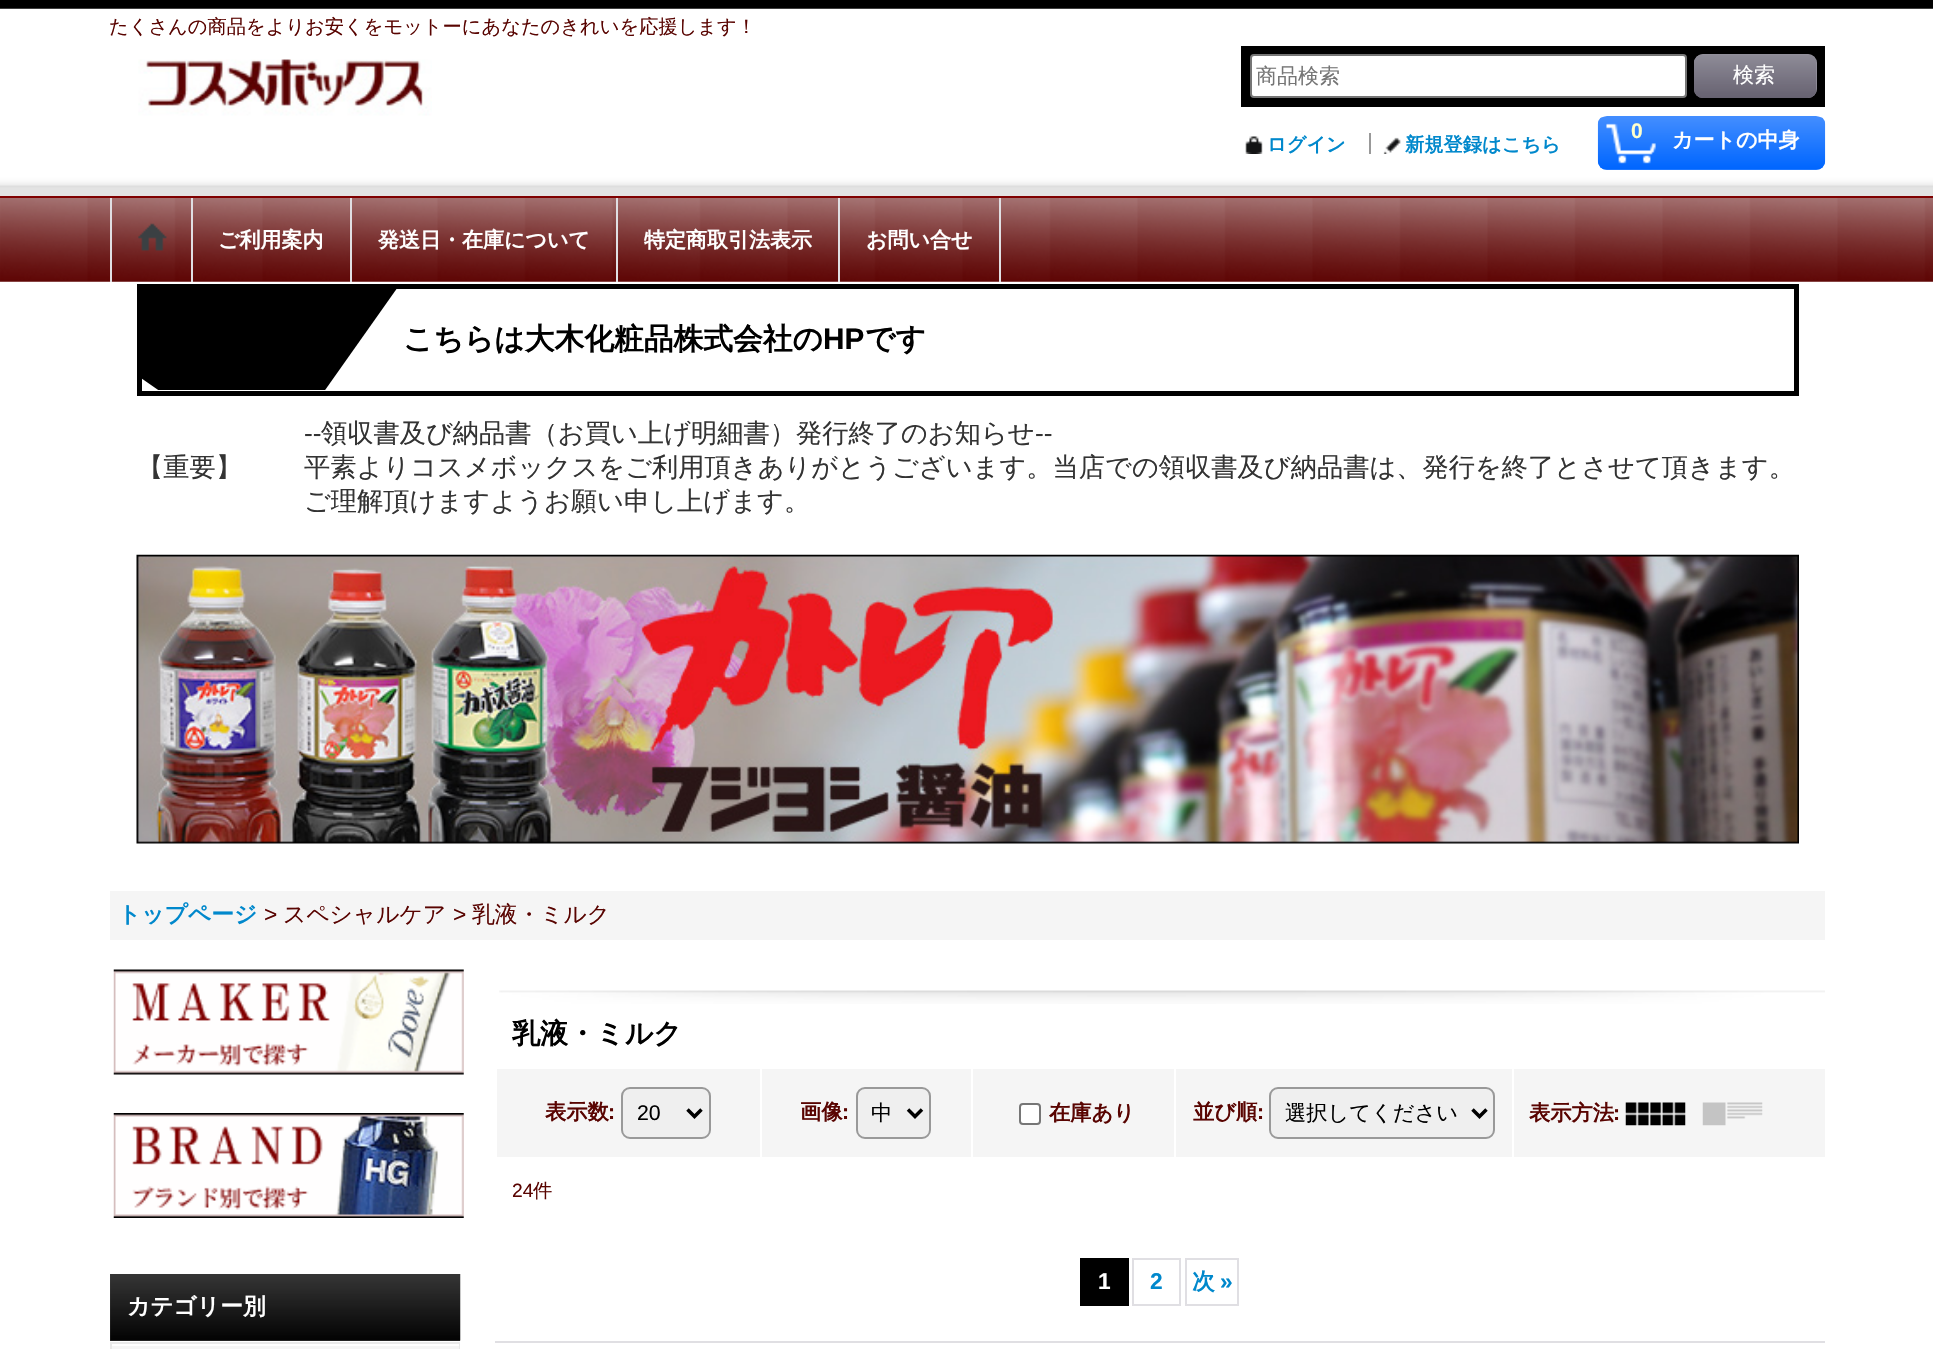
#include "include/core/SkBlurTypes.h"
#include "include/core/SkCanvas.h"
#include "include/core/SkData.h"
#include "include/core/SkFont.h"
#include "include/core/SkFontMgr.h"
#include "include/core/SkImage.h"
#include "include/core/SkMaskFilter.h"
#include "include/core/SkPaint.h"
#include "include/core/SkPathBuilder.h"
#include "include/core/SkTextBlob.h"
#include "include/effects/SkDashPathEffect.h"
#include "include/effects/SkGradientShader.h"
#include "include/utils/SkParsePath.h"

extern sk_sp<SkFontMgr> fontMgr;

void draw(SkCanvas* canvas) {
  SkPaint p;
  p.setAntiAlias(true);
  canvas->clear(SK_ColorWHITE);
  p.setColor(SK_ColorBLACK);
  canvas->drawRect(SkRect::MakeLTRB(0, 0, 1933, 9), p);
  canvas->drawImageRect(SkImages::DeferredFromEncodedData(SkData::MakeFromFileName("images/1.png")), SkRect::MakeLTRB(0, 8, 1933, 196), SkSamplingOptions());
  canvas->drawImageRect(SkImages::DeferredFromEncodedData(SkData::MakeFromFileName("images/2.png")), SkRect::MakeLTRB(138, 59, 432, 116), SkSamplingOptions());
  canvas->drawRect(SkRect::MakeLTRB(1241, 46, 1825, 107), p);
  p.setColor(SK_ColorWHITE);
  canvas->drawRoundRect(SkRect::MakeLTRB(1251, 55, 1686, 97), 3, 3, p);
  p.setStyle(SkPaint::kStroke_Style);
  p.setStrokeWidth(2);
  p.setColor(SkColorSetRGB(118, 118, 118));
  canvas->drawRoundRect(SkRect::MakeLTRB(1251, 55, 1686, 97), 3, 3, p);
  p.setStyle(SkPaint::kFill_Style);
  p.setColor(SkColorSetRGB(148, 146, 157));
  canvas->drawRoundRect(SkRect::MakeLTRB(1694, 54, 1817, 98), 9, 9, p);
  canvas->drawImageRect(SkImages::DeferredFromEncodedData(SkData::MakeFromFileName("images/3.png")), SkRect::MakeLTRB(1694, 54, 1817, 98), SkSamplingOptions());
  canvas->drawImageRect(SkImages::DeferredFromEncodedData(SkData::MakeFromFileName("images/4.png")), SkRect::MakeLTRB(1245, 136, 1263, 154), SkSamplingOptions());
  p.setColor(SkColorSetRGB(153, 153, 153));
  canvas->drawRect(SkRect::MakeLTRB(1369, 133, 1371, 154), p);
  canvas->drawImageRect(SkImages::DeferredFromEncodedData(SkData::MakeFromFileName("images/5.png")), SkRect::MakeLTRB(1383, 137, 1401, 154), SkSamplingOptions());
  p.setColor(SkColorSetRGB(66, 141, 255));
  canvas->drawRoundRect(SkRect::MakeLTRB(1598, 116, 1825, 170), 9, 9, p);
  canvas->drawImageRect(SkImages::DeferredFromEncodedData(SkData::MakeFromFileName("images/6.png")), SkRect::MakeLTRB(1597, 117, 1826, 170), SkSamplingOptions());
  canvas->drawImageRect(SkImages::DeferredFromEncodedData(SkData::MakeFromFileName("images/7.png")), SkRect::MakeLTRB(1606, 123, 1656, 164), SkSamplingOptions());
  canvas->drawImageRect(SkImages::DeferredFromEncodedData(SkData::MakeFromFileName("images/8.png")), SkRect::MakeLTRB(0, 198, 1933, 282), SkSamplingOptions());
  p.setColor(SkColorSetRGB(128, 0, 0));
  canvas->drawRect(SkRect::MakeLTRB(0, 196, 1933, 198), p);
  p.setColor(SkColorSetRGB(224, 223, 227));
  canvas->drawRect(SkRect::MakeLTRB(191, 198, 193, 282), p);
  canvas->drawRect(SkRect::MakeLTRB(110, 198, 112, 282), p);
  canvas->drawImageRect(SkImages::DeferredFromEncodedData(SkData::MakeFromFileName("images/9.png")), SkRect::MakeLTRB(138, 223, 167, 251), SkSamplingOptions());
  canvas->drawRect(SkRect::MakeLTRB(350, 198, 352, 282), p);
  canvas->drawRect(SkRect::MakeLTRB(616, 198, 618, 282), p);
  canvas->drawRect(SkRect::MakeLTRB(838, 198, 840, 282), p);
  canvas->drawRect(SkRect::MakeLTRB(999, 198, 1001, 282), p);
  p.setStyle(SkPaint::kStroke_Style);
  p.setStrokeWidth(5);
  p.setColor(SK_ColorBLACK);
  canvas->drawRect(SkRect::MakeLTRB(139.5f, 286.5f, 1796.5f, 393.5f), p);
  canvas->save();
  canvas->clipRect(SkRect::MakeLTRB(142, 289, 1794, 390));
  p.setStyle(SkPaint::kFill_Style);
  canvas->drawPath(SkPathBuilder().moveTo(190, 126).lineTo(405, 277).lineTo(270, 468).lineTo(55, 318).close().detach(), p);
  canvas->restore();
  canvas->drawImageRect(SkImages::DeferredFromEncodedData(SkData::MakeFromFileName("images/10.png")), SkRect::MakeLTRB(136, 554, 1799, 844), SkSamplingOptions());
  p.setColor(SkColorSetRGB(245, 245, 245));
  canvas->drawRect(SkRect::MakeLTRB(110, 891, 1825, 940), p);
  canvas->drawImageRect(SkImages::DeferredFromEncodedData(SkData::MakeFromFileName("images/11.png")), SkRect::MakeLTRB(499, 990, 1825, 1004), SkSamplingOptions());
  canvas->drawRect(SkRect::MakeLTRB(497, 1069, 1825, 1157), p);
  p.setColor(SkColorSetRGB(239, 239, 239));
  canvas->drawRoundRect(SkRect::MakeLTRB(622, 1088, 710, 1138), 8, 8, p);
  p.setStyle(SkPaint::kStroke_Style);
  p.setStrokeWidth(2);
  p.setColor(SkColorSetRGB(153, 153, 153));
  canvas->drawRoundRect(SkRect::MakeLTRB(622, 1088, 710, 1138), 8, 8, p);
  p.setStrokeWidth(3.5f);
  p.setColor(SK_ColorBLACK);
  canvas->drawPath(SkPathBuilder().moveTo(687.5f, 1109.5f).lineTo(694.5f, 1116.5f).lineTo(701.5f, 1109.5f).detach(), p);
  p.setStyle(SkPaint::kFill_Style);
  p.setColor(SK_ColorWHITE);
  canvas->drawRect(SkRect::MakeLTRB(760, 1069, 762, 1157), p);
  p.setColor(SkColorSetRGB(239, 239, 239));
  canvas->drawRoundRect(SkRect::MakeLTRB(857, 1088, 930, 1138), 8, 8, p);
  p.setStyle(SkPaint::kStroke_Style);
  p.setStrokeWidth(2);
  p.setColor(SkColorSetRGB(153, 153, 153));
  canvas->drawRoundRect(SkRect::MakeLTRB(857, 1088, 930, 1138), 8, 8, p);
  p.setStrokeWidth(3.5f);
  p.setColor(SK_ColorBLACK);
  canvas->drawPath(SkPathBuilder().moveTo(908, 1109.5f).lineTo(915, 1116.5f).lineTo(922, 1109.5f).detach(), p);
  p.setStyle(SkPaint::kFill_Style);
  p.setColor(SK_ColorWHITE);
  canvas->drawRect(SkRect::MakeLTRB(971, 1069, 973, 1157), p);
  canvas->drawRoundRect(SkRect::MakeLTRB(1020, 1104, 1040, 1124), 3, 3, p);
  p.setStyle(SkPaint::kStroke_Style);
  p.setStrokeWidth(2);
  p.setColor(SkColorSetRGB(118, 118, 118));
  canvas->drawRoundRect(SkRect::MakeLTRB(1020, 1104, 1040, 1124), 3, 3, p);
  p.setStyle(SkPaint::kFill_Style);
  p.setColor(SK_ColorWHITE);
  canvas->drawRect(SkRect::MakeLTRB(1174, 1069, 1176, 1157), p);
  p.setColor(SkColorSetRGB(239, 239, 239));
  canvas->drawRoundRect(SkRect::MakeLTRB(1270, 1088, 1494, 1138), 8, 8, p);
  p.setStyle(SkPaint::kStroke_Style);
  p.setColor(SkColorSetRGB(153, 153, 153));
  canvas->drawRoundRect(SkRect::MakeLTRB(1270, 1088, 1494, 1138), 8, 8, p);
  p.setStrokeWidth(3.5f);
  p.setColor(SK_ColorBLACK);
  canvas->drawPath(SkPathBuilder().moveTo(1472.5f, 1109.5f).lineTo(1479.5f, 1116.5f).lineTo(1486.5f, 1109.5f).detach(), p);
  p.setStyle(SkPaint::kFill_Style);
  p.setColor(SK_ColorWHITE);
  canvas->drawRect(SkRect::MakeLTRB(1512, 1069, 1514, 1157), p);
  canvas->drawImageRect(SkImages::DeferredFromEncodedData(SkData::MakeFromFileName("images/12.png")), SkRect::MakeLTRB(1625, 1102, 1686, 1126), SkSamplingOptions());
  canvas->drawImageRect(SkImages::DeferredFromEncodedData(SkData::MakeFromFileName("images/13.png")), SkRect::MakeLTRB(1702, 1102, 1763, 1126), SkSamplingOptions());
  p.setColor(SkColorSetRGB(224, 223, 227));
  canvas->drawRect(SkRect::MakeLTRB(495, 1341, 1825, 1343), p);
  p.setColor(SK_ColorBLACK);
  canvas->drawRect(SkRect::MakeLTRB(1080, 1258, 1129, 1306), p);
  p.setStyle(SkPaint::kStroke_Style);
  p.setStrokeWidth(2);
  p.setColor(SkColorSetRGB(224, 223, 227));
  canvas->drawRect(SkRect::MakeLTRB(1133, 1259, 1180, 1305), p);
  canvas->drawRect(SkRect::MakeLTRB(1186, 1259, 1238, 1305), p);
  canvas->drawImageRect(SkImages::DeferredFromEncodedData(SkData::MakeFromFileName("images/14.png")), SkRect::MakeLTRB(113, 969, 464, 1075), SkSamplingOptions());
  canvas->drawImageRect(SkImages::DeferredFromEncodedData(SkData::MakeFromFileName("images/15.png")), SkRect::MakeLTRB(113, 1113, 464, 1218), SkSamplingOptions());
  p.setStyle(SkPaint::kFill_Style);
  p.setColor(SkColorSetRGB(68, 68, 68));
  canvas->drawRect(SkRect::MakeLTRB(110, 1274, 460, 1341), p);
  canvas->drawImageRect(SkImages::DeferredFromEncodedData(SkData::MakeFromFileName("images/16.png")), SkRect::MakeLTRB(110, 1274, 461, 1341), SkSamplingOptions());
  p.setStyle(SkPaint::kStroke_Style);
  p.setColor(SkColorSetRGB(233, 233, 233));
  canvas->drawRect(SkRect::MakeLTRB(111, 1343, 459, 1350), p);
  p.setStyle(SkPaint::kFill_Style);
  p.setColor(SkColorSetRGB(245, 245, 245));
  canvas->drawRect(SkRect::MakeLTRB(112, 1346, 459, 1349), p);
  p.setColor(SK_ColorWHITE);
  canvas->drawRect(SkRect::MakeLTRB(458, 1344, 459, 1346), p);
  SkFont font1(fontMgr->matchFamilyStyle("WenQuanYi Zen Hei", SkFontStyle(500, SkFontStyle::kNormal_Width, SkFontStyle::kUpright_Slant)), 19.25f);
  font1.setSubpixel(true);
  p.setColor(SkColorSetRGB(89, 4, 1));
  canvas->drawString("たくさんの商品をよりお安くをモットーにあなたのきれいを応援します！", 109, 33, font1, p);
  SkFont font2(fontMgr->matchFamilyStyle("WenQuanYi Zen Hei", SkFontStyle(500, SkFontStyle::kNormal_Width, SkFontStyle::kUpright_Slant)), 21);
  font2.setSubpixel(true);
  p.setColor(SkColorSetRGB(117, 117, 117));
  canvas->drawString("商品検索", 1256, 83, font2, p);
  p.setColor(SK_ColorWHITE);
  canvas->drawString("検索", 1733, 82, font2, p);
  SkFont font3(fontMgr->matchFamilyStyle("WenQuanYi Zen Hei", SkFontStyle::Bold()), 19.25f);
  font3.setSubpixel(true);
  p.setColor(SkColorSetRGB(0, 136, 204));
  canvas->drawString("ログイン", 1267, 151, font3, p);
  canvas->drawString("新規登録はこちら", 1405, 151, font3, p);
  SkFont font4(fontMgr->matchFamilyStyle("Liberation Sans", SkFontStyle::Bold()), 21);
  font4.setSubpixel(true);
  p.setColor(SkColorSetRGB(255, 255, 204));
  canvas->drawString("0", 1631, 138, font4, p);
  SkFont font5(fontMgr->matchFamilyStyle("WenQuanYi Zen Hei", SkFontStyle::Bold()), 21);
  font5.setSubpixel(true);
  p.setColor(SK_ColorWHITE);
  canvas->drawString("カートの中身", 1672, 147, font5, p);
  canvas->drawString("ご利用案内", 218, 247, font5, p);
  canvas->drawString("発送日・在庫について", 378, 247, font5, p);
  canvas->drawString("特定商取引法表示", 644, 247, font5, p);
  canvas->drawString("お問い合せ", 866, 247, font5, p);
  SkFont font6(fontMgr->matchFamilyStyle("WenQuanYi Zen Hei", SkFontStyle::Bold()), 29.75f);
  font6.setSubpixel(true);
  p.setColor(SK_ColorBLACK);
  canvas->drawString("こちらは大木化粧品株式会社の", 403, 349, font6, p);
  SkFont font7(fontMgr->matchFamilyStyle("Liberation Sans", SkFontStyle::Bold()), 29.75f);
  font7.setSubpixel(true);
  canvas->drawString("HP", 823, 349, font7, p);
  canvas->drawString("です", 865, 349, font6, p);
  SkFont font8(fontMgr->matchFamilyStyle("WenQuanYi Zen Hei", SkFontStyle(500, SkFontStyle::kNormal_Width, SkFontStyle::kUpright_Slant)), 26.25f);
  font8.setSubpixel(true);
  p.setColor(SkColorSetRGB(51, 51, 51));
  canvas->drawString("【重要】", 137, 476, font8, p);
  SkFont font9(fontMgr->matchFamilyStyle("Liberation Sans", SkFontStyle::Normal()), 26.25f);
  font9.setSubpixel(true);
  canvas->drawString("--", 304, 442, font9, p);
  canvas->drawString("領収書及び納品書（お買い上げ明細書）発行終了のお知らせ", 321, 442, font8, p);
  canvas->drawString("--", 1035, 442, font9, p);
  canvas->drawString("平素よりコスメボックスをご利用頂きありがとうございます。当店での領収書及び納品書は、発行を終了とさせて頂きます。", 304, 476, font8, p);
  canvas->drawString("ご理解頂けますようお願い申し上げます。", 304, 510, font8, p);
  SkFont font10(fontMgr->matchFamilyStyle("WenQuanYi Zen Hei", SkFontStyle::Bold()), 22.75f);
  font10.setSubpixel(true);
  p.setColor(SkColorSetRGB(0, 136, 204));
  canvas->drawString("トップページ", 118, 922, font10, p);
  SkFont font11(fontMgr->matchFamilyStyle("Liberation Sans", SkFontStyle::Normal()), 22.75f);
  font11.setSubpixel(true);
  p.setColor(SkColorSetRGB(89, 4, 1));
  canvas->drawString(">", 264, 922, font11, p);
  SkFont font12(fontMgr->matchFamilyStyle("WenQuanYi Zen Hei", SkFontStyle(500, SkFontStyle::kNormal_Width, SkFontStyle::kUpright_Slant)), 22.75f);
  font12.setSubpixel(true);
  canvas->drawString("スペシャルケア", 283, 922, font12, p);
  canvas->drawString(">", 453, 922, font11, p);
  canvas->drawString("乳液・ミルク", 472, 922, font12, p);
  SkFont font13(fontMgr->matchFamilyStyle("WenQuanYi Zen Hei", SkFontStyle::Bold()), 28);
  font13.setSubpixel(true);
  p.setColor(SK_ColorBLACK);
  canvas->drawString("乳液・ミルク", 512, 1043, font13, p);
  SkFont font14(fontMgr->matchFamilyStyle("WenQuanYi Zen Hei", SkFontStyle::Bold()), 21.25f);
  font14.setSubpixel(true);
  p.setColor(SkColorSetRGB(89, 4, 1));
  canvas->drawString("表示数", 545, 1119, font14, p);
  SkFont font15(fontMgr->matchFamilyStyle("Liberation Sans", SkFontStyle::Bold()), 21.25f);
  font15.setSubpixel(true);
  canvas->drawString(":", 608, 1119, font15, p);
  SkFont font16(fontMgr->matchFamilyStyle("Liberation Sans", SkFontStyle::Normal()), 21.25f);
  font16.setSubpixel(true);
  p.setColor(SK_ColorBLACK);
  canvas->drawString("20", 637, 1120, font16, p);
  p.setColor(SkColorSetRGB(89, 4, 1));
  canvas->drawString("画像", 800, 1119, font14, p);
  canvas->drawString(":", 842, 1119, font15, p);
  SkFont font17(fontMgr->matchFamilyStyle("WenQuanYi Zen Hei", SkFontStyle(500, SkFontStyle::kNormal_Width, SkFontStyle::kUpright_Slant)), 21.25f);
  font17.setSubpixel(true);
  p.setColor(SK_ColorBLACK);
  canvas->drawString("中", 871, 1120, font17, p);
  p.setColor(SkColorSetRGB(89, 4, 1));
  canvas->drawString("在庫あり", 1049, 1120, font14, p);
  canvas->drawString("並び順", 1193, 1119, font14, p);
  canvas->drawString(":", 1257, 1119, font15, p);
  p.setColor(SK_ColorBLACK);
  canvas->drawString("選択してください", 1285, 1120, font17, p);
  p.setColor(SkColorSetRGB(89, 4, 1));
  canvas->drawString("表示方法", 1529, 1120, font14, p);
  canvas->drawString(":", 1613, 1120, font15, p);
  SkFont font18(fontMgr->matchFamilyStyle("Liberation Sans", SkFontStyle::Normal()), 19.25f);
  font18.setSubpixel(true);
  canvas->drawString("24", 512, 1197, font18, p);
  canvas->drawString("件", 533, 1197, font1, p);
  SkFont font19(fontMgr->matchFamilyStyle("Liberation Sans", SkFontStyle::Bold()), 22.75f);
  font19.setSubpixel(true);
  p.setColor(SK_ColorWHITE);
  canvas->drawString("1", 1098, 1289, font19, p);
  p.setColor(SkColorSetRGB(0, 136, 204));
  canvas->drawString("2", 1150, 1289, font19, p);
  canvas->drawString("次", 1192, 1289, font10, p);
  canvas->drawString("»", 1220, 1289, font19, p);
  p.setColor(SK_ColorWHITE);
  canvas->drawString("カテゴリー別", 127, 1314, font10, p);
}
